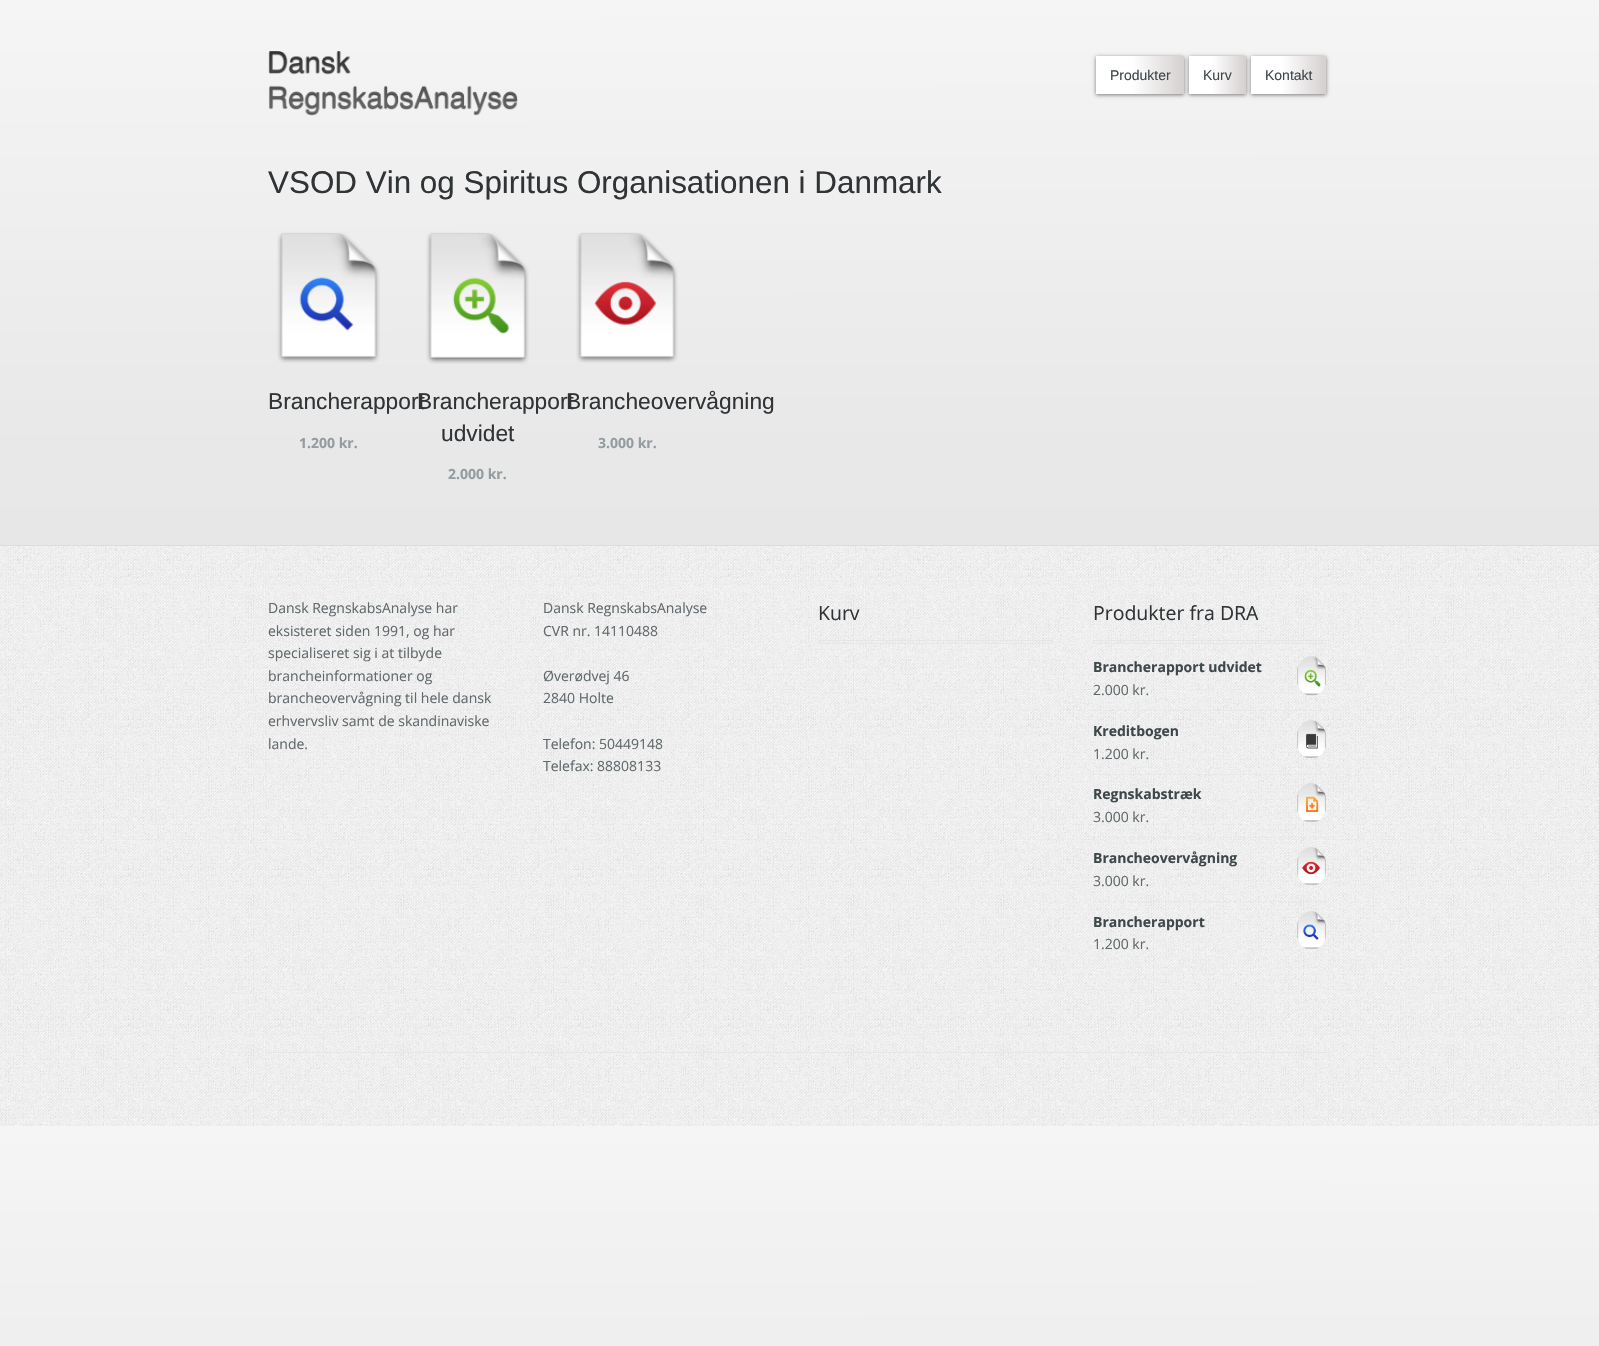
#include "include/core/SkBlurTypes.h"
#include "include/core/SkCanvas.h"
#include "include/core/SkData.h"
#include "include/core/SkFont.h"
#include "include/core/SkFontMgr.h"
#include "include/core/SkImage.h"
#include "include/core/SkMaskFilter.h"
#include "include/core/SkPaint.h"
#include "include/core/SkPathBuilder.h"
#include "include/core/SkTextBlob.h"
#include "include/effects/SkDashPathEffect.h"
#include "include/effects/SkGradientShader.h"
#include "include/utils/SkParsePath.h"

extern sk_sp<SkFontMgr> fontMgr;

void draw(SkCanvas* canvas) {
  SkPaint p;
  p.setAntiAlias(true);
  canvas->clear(SK_ColorWHITE);
  {
    const SkColor colors[] = {SkColorSetRGB(245, 245, 245), SkColorSetRGB(232, 232, 232), SkColorSetRGB(226, 226, 226)};
    const float stops[] = {0, 0.4f, 1};
    const SkPoint ends[] = {{799, 0}, {800, 1126}};
    p.setShader(SkGradientShader::MakeLinear(ends, colors, stops, 3, SkTileMode::kClamp));
    p.setAlpha(255);
  }
  canvas->drawRect(SkRect::MakeLTRB(0, 0, 1599, 545), p);
  {
    const SkColor colors[] = {SkColorSetRGB(245, 245, 245), SkColorSetRGB(232, 232, 232), SkColorSetRGB(226, 226, 226)};
    const float stops[] = {0, 0.4f, 1};
    const SkPoint ends[] = {{799, 1126}, {800, 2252}};
    p.setShader(SkGradientShader::MakeLinear(ends, colors, stops, 3, SkTileMode::kClamp));
    p.setAlpha(255);
  }
  canvas->drawRect(SkRect::MakeLTRB(0, 1126, 1599, 1346), p);
  canvas->drawImageRect(SkImages::DeferredFromEncodedData(SkData::MakeFromFileName("images/1.png")), SkRect::MakeLTRB(268, 51, 518, 116), SkSamplingOptions());
  p.setShader(nullptr);
  p.setColor(SkColorSetARGB(128, 0, 0, 0));
  p.setMaskFilter(SkMaskFilter::MakeBlur(kNormal_SkBlurStyle, 2));
  canvas->drawRect(SkRect::MakeLTRB(1096, 57, 1184, 95), p);
  p.setMaskFilter(nullptr);
  {
    const SkColor colors[] = {SkColorSetRGB(215, 210, 210), SK_ColorWHITE};
    const float stops[] = {0.03f, 0.59f};
    const SkPoint ends[] = {{1184, 75}, {1096, 75}};
    p.setShader(SkGradientShader::MakeLinear(ends, colors, stops, 2, SkTileMode::kClamp));
    p.setAlpha(255);
  }
  canvas->drawRect(SkRect::MakeLTRB(1096, 56, 1184, 94), p);
  p.setShader(nullptr);
  p.setColor(SkColorSetARGB(128, 0, 0, 0));
  p.setMaskFilter(SkMaskFilter::MakeBlur(kNormal_SkBlurStyle, 2));
  canvas->drawRect(SkRect::MakeLTRB(1189, 57, 1246, 95), p);
  p.setMaskFilter(nullptr);
  {
    const SkColor colors[] = {SkColorSetRGB(215, 210, 210), SK_ColorWHITE};
    const float stops[] = {0.03f, 0.59f};
    const SkPoint ends[] = {{1246, 75}, {1189, 75}};
    p.setShader(SkGradientShader::MakeLinear(ends, colors, stops, 2, SkTileMode::kClamp));
    p.setAlpha(255);
  }
  canvas->drawRect(SkRect::MakeLTRB(1189, 56, 1246, 94), p);
  p.setShader(nullptr);
  p.setColor(SkColorSetARGB(128, 0, 0, 0));
  p.setMaskFilter(SkMaskFilter::MakeBlur(kNormal_SkBlurStyle, 2));
  canvas->drawRect(SkRect::MakeLTRB(1251, 57, 1326, 95), p);
  p.setMaskFilter(nullptr);
  {
    const SkColor colors[] = {SkColorSetRGB(215, 210, 210), SK_ColorWHITE};
    const float stops[] = {0.03f, 0.59f};
    const SkPoint ends[] = {{1326, 75}, {1251, 75}};
    p.setShader(SkGradientShader::MakeLinear(ends, colors, stops, 2, SkTileMode::kClamp));
    p.setAlpha(255);
  }
  canvas->drawRect(SkRect::MakeLTRB(1251, 56, 1326, 94), p);
  canvas->drawImageRect(SkImages::DeferredFromEncodedData(SkData::MakeFromFileName("images/2.png")), SkRect::MakeLTRB(277, 232, 380, 363), SkSamplingOptions());
  canvas->drawImageRect(SkImages::DeferredFromEncodedData(SkData::MakeFromFileName("images/3.png")), SkRect::MakeLTRB(426, 232, 529, 364), SkSamplingOptions());
  canvas->drawImageRect(SkImages::DeferredFromEncodedData(SkData::MakeFromFileName("images/4.png")), SkRect::MakeLTRB(576, 232, 678, 363), SkSamplingOptions());
  canvas->drawImageRect(SkImages::DeferredFromEncodedData(SkData::MakeFromFileName("images/5.png")), SkRect::MakeLTRB(0, 546, 1599, 1126), SkSamplingOptions());
  p.setShader(nullptr);
  p.setColor(SkColorSetRGB(220, 220, 220));
  canvas->drawRect(SkRect::MakeLTRB(0, 545, 1599, 546), p);
  p.setColor(SkColorSetRGB(227, 231, 232));
  canvas->drawRect(SkRect::MakeLTRB(818, 640, 1052, 641), p);
  canvas->drawRect(SkRect::MakeLTRB(818, 643, 1052, 644), p);
  canvas->drawRect(SkRect::MakeLTRB(1093, 640, 1327, 641), p);
  canvas->drawRect(SkRect::MakeLTRB(1093, 643, 1327, 644), p);
  p.setStyle(SkPaint::kStroke_Style);
  p.setStrokeWidth(1);
  p.setPathEffect(SkDashPathEffect::Make({{3, 2.02f}}, 0));
  canvas->drawPath(SkPathBuilder().moveTo(1093, 710.5f).lineTo(1327, 710.5f).detach(), p);
  p.setPathEffect(nullptr);
  canvas->drawImageRect(SkImages::DeferredFromEncodedData(SkData::MakeFromFileName("images/6.png")), SkRect::MakeLTRB(1297, 656, 1326, 696), SkSamplingOptions());
  p.setPathEffect(SkDashPathEffect::Make({{3, 2.02f}}, 0));
  canvas->drawPath(SkPathBuilder().moveTo(1093, 774.5f).lineTo(1327, 774.5f).detach(), p);
  p.setPathEffect(nullptr);
  canvas->drawImageRect(SkImages::DeferredFromEncodedData(SkData::MakeFromFileName("images/7.png")), SkRect::MakeLTRB(1297, 720, 1326, 758), SkSamplingOptions());
  p.setPathEffect(SkDashPathEffect::Make({{3, 2.02f}}, 0));
  canvas->drawPath(SkPathBuilder().moveTo(1093, 837.5f).lineTo(1327, 837.5f).detach(), p);
  p.setPathEffect(nullptr);
  canvas->drawImageRect(SkImages::DeferredFromEncodedData(SkData::MakeFromFileName("images/8.png")), SkRect::MakeLTRB(1297, 783, 1326, 822), SkSamplingOptions());
  p.setPathEffect(SkDashPathEffect::Make({{3, 2.02f}}, 0));
  canvas->drawPath(SkPathBuilder().moveTo(1093, 901.5f).lineTo(1327, 901.5f).detach(), p);
  p.setPathEffect(nullptr);
  canvas->drawImageRect(SkImages::DeferredFromEncodedData(SkData::MakeFromFileName("images/9.png")), SkRect::MakeLTRB(1297, 847, 1326, 885), SkSamplingOptions());
  canvas->drawImageRect(SkImages::DeferredFromEncodedData(SkData::MakeFromFileName("images/10.png")), SkRect::MakeLTRB(1297, 911, 1326, 949), SkSamplingOptions());
  p.setStyle(SkPaint::kFill_Style);
  canvas->drawRect(SkRect::MakeLTRB(268, 1052, 1331, 1053), p);
  SkFont font1(fontMgr->matchFamilyStyle("Liberation Sans", SkFontStyle::Normal()), 14);
  font1.setSubpixel(true);
  p.setColor(SkColorSetRGB(62, 71, 74));
  canvas->drawString("Produkter", 1110, 80, font1, p);
  canvas->drawString("Kurv", 1203, 80, font1, p);
  canvas->drawString("Kontakt", 1265, 80, font1, p);
  SkFont font2(fontMgr->matchFamilyStyle("Liberation Sans", SkFontStyle::Normal()), 31.4f);
  font2.setSubpixel(true);
  p.setColor(SkColorSetRGB(48, 52, 54));
  canvas->drawString("VSOD Vin og Spiritus Organisationen i Danmark", 268, 193, font2, p);
  SkFont font3(fontMgr->matchFamilyStyle("Liberation Sans", SkFontStyle::Normal()), 22.75f);
  font3.setSubpixel(true);
  canvas->drawString("Brancherapport", 268, 409, font3, p);
  SkFont font4(fontMgr->matchFamilyStyle("Open Sans", SkFontStyle::Bold()), 14);
  font4.setSubpixel(true);
  p.setColor(SkColorSetRGB(147, 156, 159));
  canvas->drawString("1.200 kr.", 299, 448, font4, p);
  p.setColor(SkColorSetRGB(48, 52, 54));
  canvas->drawString("Brancherapport", 417, 409, font3, p);
  canvas->drawString("udvidet", 441, 441, font3, p);
  p.setColor(SkColorSetRGB(147, 156, 159));
  canvas->drawString("2.000 kr.", 448, 479, font4, p);
  p.setColor(SkColorSetRGB(48, 52, 54));
  canvas->drawString("Brancheovervågning", 566, 409, font3, p);
  p.setColor(SkColorSetRGB(147, 156, 159));
  canvas->drawString("3.000 kr.", 598, 448, font4, p);
  SkFont font5(fontMgr->matchFamilyStyle("Open Sans", SkFontStyle::Normal()), 14);
  font5.setSubpixel(true);
  p.setColor(SkColorSetRGB(96, 105, 108));
  canvas->drawString("Dansk RegnskabsAnalyse har", 268, 613, font5, p);
  canvas->drawString("eksisteret siden 1991, og har", 268, 636, font5, p);
  canvas->drawString("specialiseret sig i at tilbyde", 268, 658, font5, p);
  canvas->drawString("brancheinformationer og", 268, 681, font5, p);
  canvas->drawString("brancheovervågning til hele dansk", 268, 703, font5, p);
  canvas->drawString("erhvervsliv samt de skandinaviske", 268, 726, font5, p);
  canvas->drawString("lande.", 268, 749, font5, p);
  canvas->drawString("Dansk RegnskabsAnalyse", 543, 613, font5, p);
  canvas->drawString("CVR nr. 14110488", 543, 636, font5, p);
  canvas->drawString("Øverødvej 46", 543, 681, font5, p);
  canvas->drawString("2840 Holte", 543, 703, font5, p);
  canvas->drawString("Telefon: 50449148", 543, 749, font5, p);
  canvas->drawString("Telefax: 88808133", 543, 771, font5, p);
  SkFont font6(fontMgr->matchFamilyStyle("Open Sans", SkFontStyle::Normal()), 19.5f);
  font6.setSubpixel(true);
  p.setColor(SkColorSetRGB(48, 52, 54));
  canvas->drawString("Kurv", 818, 620, font6, p);
  canvas->drawString("Produkter fra DRA", 1093, 620, font6, p);
  p.setColor(SkColorSetRGB(62, 71, 74));
  canvas->drawString("Brancherapport udvidet", 1093, 672, font4, p);
  p.setColor(SkColorSetRGB(96, 105, 108));
  canvas->drawString("2.000 kr.", 1093, 695, font5, p);
  p.setColor(SkColorSetRGB(62, 71, 74));
  canvas->drawString("Kreditbogen", 1093, 736, font4, p);
  p.setColor(SkColorSetRGB(96, 105, 108));
  canvas->drawString("1.200 kr.", 1093, 759, font5, p);
  p.setColor(SkColorSetRGB(62, 71, 74));
  canvas->drawString("Regnskabstræk", 1093, 799, font4, p);
  p.setColor(SkColorSetRGB(96, 105, 108));
  canvas->drawString("3.000 kr.", 1093, 822, font5, p);
  p.setColor(SkColorSetRGB(62, 71, 74));
  canvas->drawString("Brancheovervågning", 1093, 863, font4, p);
  p.setColor(SkColorSetRGB(96, 105, 108));
  canvas->drawString("3.000 kr.", 1093, 886, font5, p);
  p.setColor(SkColorSetRGB(62, 71, 74));
  canvas->drawString("Brancherapport", 1093, 927, font4, p);
  p.setColor(SkColorSetRGB(96, 105, 108));
  canvas->drawString("1.200 kr.", 1093, 949, font5, p);
}
